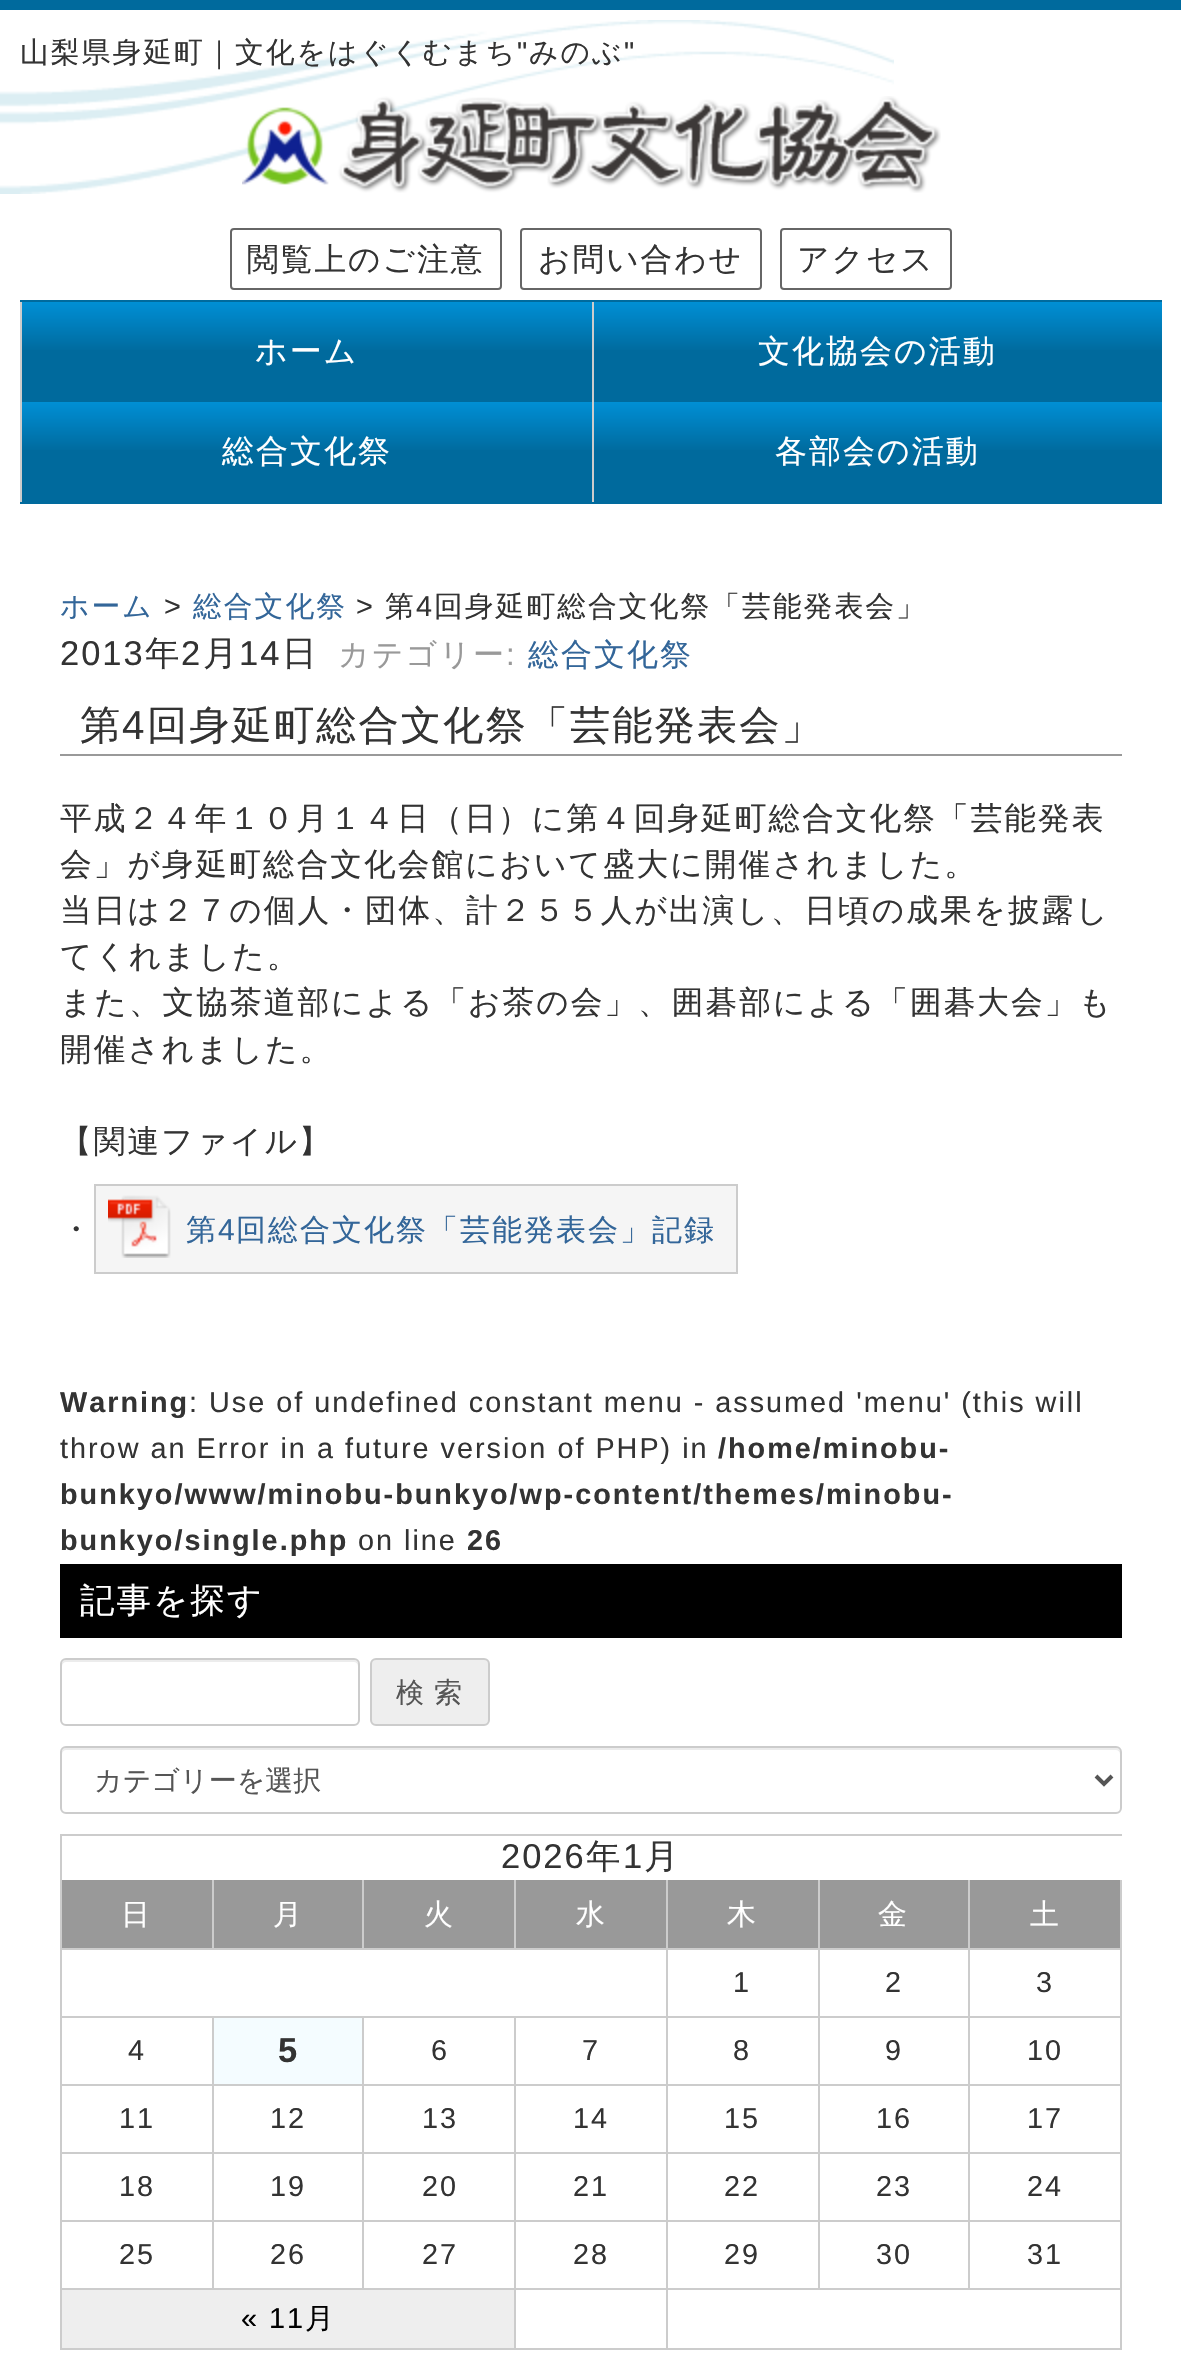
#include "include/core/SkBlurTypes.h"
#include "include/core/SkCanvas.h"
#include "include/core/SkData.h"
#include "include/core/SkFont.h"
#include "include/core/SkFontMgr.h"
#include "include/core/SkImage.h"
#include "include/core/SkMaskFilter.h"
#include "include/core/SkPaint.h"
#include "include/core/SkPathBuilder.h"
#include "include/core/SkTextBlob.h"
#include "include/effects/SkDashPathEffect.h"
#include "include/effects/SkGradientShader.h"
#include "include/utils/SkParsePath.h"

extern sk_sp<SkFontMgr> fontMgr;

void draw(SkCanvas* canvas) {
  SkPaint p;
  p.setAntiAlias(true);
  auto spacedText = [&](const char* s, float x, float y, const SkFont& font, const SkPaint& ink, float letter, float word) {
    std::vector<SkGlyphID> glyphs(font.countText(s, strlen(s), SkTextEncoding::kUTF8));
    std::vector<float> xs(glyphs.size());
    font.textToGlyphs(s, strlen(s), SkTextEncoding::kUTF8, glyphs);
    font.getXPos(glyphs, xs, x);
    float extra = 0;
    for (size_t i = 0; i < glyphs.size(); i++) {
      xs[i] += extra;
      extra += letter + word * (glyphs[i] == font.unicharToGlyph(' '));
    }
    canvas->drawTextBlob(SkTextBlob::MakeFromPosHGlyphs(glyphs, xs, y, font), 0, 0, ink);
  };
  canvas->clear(SK_ColorWHITE);
  p.setColor(SkColorSetRGB(0, 106, 157));
  canvas->drawRect(SkRect::MakeLTRB(0, 0, 1181, 10), p);
  canvas->drawImageRect(SkImages::DeferredFromEncodedData(SkData::MakeFromFileName("images/1.png")), SkRect::MakeLTRB(0, 20, 894, 194), SkSamplingOptions());
  canvas->drawImageRect(SkImages::DeferredFromEncodedData(SkData::MakeFromFileName("images/2.png")), SkRect::MakeLTRB(242, 96, 941, 193), SkSamplingOptions());
  p.setStyle(SkPaint::kStroke_Style);
  p.setStrokeWidth(2);
  p.setColor(SkColorSetRGB(102, 102, 102));
  canvas->drawRoundRect(SkRect::MakeLTRB(231, 229, 501, 289), 3, 3, p);
  canvas->drawRoundRect(SkRect::MakeLTRB(521, 229, 761, 289), 3, 3, p);
  canvas->drawRoundRect(SkRect::MakeLTRB(781, 229, 951, 289), 3, 3, p);
  p.setStyle(SkPaint::kFill_Style);
  p.setColor(SkColorSetRGB(0, 106, 157));
  canvas->drawRect(SkRect::MakeLTRB(20, 300, 1162, 504), p);
  {
    const SkColor colors[] = {SkColorSetRGB(0, 143, 213), SkColorSetRGB(0, 106, 157), SkColorSetRGB(0, 106, 157)};
    const float stops[] = {0, 0.5f, 1};
    const SkPoint ends[] = {{307, 302}, {307, 402}};
    p.setShader(SkGradientShader::MakeLinear(ends, colors, stops, 3, SkTileMode::kClamp));
    p.setAlpha(255);
  }
  canvas->drawRect(SkRect::MakeLTRB(22, 302, 592, 350), p);
  p.setShader(nullptr);
  p.setColor(SkColorSetRGB(204, 204, 204));
  canvas->drawRect(SkRect::MakeLTRB(20, 302, 22, 502), p);
  {
    const SkColor colors[] = {SkColorSetRGB(0, 143, 213), SkColorSetRGB(0, 106, 157), SkColorSetRGB(0, 106, 157)};
    const float stops[] = {0, 0.5f, 1};
    const SkPoint ends[] = {{878, 302}, {878, 402}};
    p.setShader(SkGradientShader::MakeLinear(ends, colors, stops, 3, SkTileMode::kClamp));
    p.setAlpha(255);
  }
  canvas->drawRect(SkRect::MakeLTRB(594, 302, 1162, 350), p);
  p.setShader(nullptr);
  p.setColor(SkColorSetRGB(204, 204, 204));
  canvas->drawRect(SkRect::MakeLTRB(592, 302, 594, 502), p);
  {
    const SkColor colors[] = {SkColorSetRGB(0, 143, 213), SkColorSetRGB(0, 106, 157), SkColorSetRGB(0, 106, 157)};
    const float stops[] = {0, 0.5f, 1};
    const SkPoint ends[] = {{307, 402}, {307, 502}};
    p.setShader(SkGradientShader::MakeLinear(ends, colors, stops, 3, SkTileMode::kClamp));
    p.setAlpha(255);
  }
  canvas->drawRect(SkRect::MakeLTRB(22, 402, 592, 450), p);
  {
    const SkColor colors[] = {SkColorSetRGB(0, 143, 213), SkColorSetRGB(0, 106, 157), SkColorSetRGB(0, 106, 157)};
    const float stops[] = {0, 0.5f, 1};
    const SkPoint ends[] = {{878, 402}, {878, 502}};
    p.setShader(SkGradientShader::MakeLinear(ends, colors, stops, 3, SkTileMode::kClamp));
    p.setAlpha(255);
  }
  canvas->drawRect(SkRect::MakeLTRB(594, 402, 1162, 450), p);
  p.setShader(nullptr);
  p.setColor(SkColorSetRGB(153, 153, 153));
  canvas->drawRect(SkRect::MakeLTRB(60, 754, 1122, 756), p);
  p.setColor(SkColorSetRGB(245, 245, 245));
  canvas->drawRect(SkRect::MakeLTRB(96, 1186, 736, 1272), p);
  canvas->drawImageRect(SkImages::DeferredFromEncodedData(SkData::MakeFromFileName("images/3.png")), SkRect::MakeLTRB(108, 1195, 171, 1258), SkSamplingOptions());
  p.setStyle(SkPaint::kStroke_Style);
  p.setColor(SkColorSetRGB(204, 204, 204));
  canvas->drawRect(SkRect::MakeLTRB(95, 1185, 737, 1273), p);
  p.setStyle(SkPaint::kFill_Style);
  p.setColor(SK_ColorBLACK);
  canvas->drawRect(SkRect::MakeLTRB(60, 1564, 1122, 1638), p);
  p.setColor(SkColorSetRGB(236, 236, 236));
  canvas->drawPath(SkPathBuilder().moveTo(66, 1662).lineTo(354, 1662).cubicTo(356, 1662, 358, 1664, 358, 1666).lineTo(358, 1664).cubicTo(358, 1662, 356, 1660, 354, 1660).lineTo(66, 1660).cubicTo(64, 1660, 62, 1662, 62, 1664).lineTo(62, 1666).cubicTo(62, 1664, 64, 1662, 66, 1662).close().detach(), p);
  p.setStyle(SkPaint::kStroke_Style);
  p.setColor(SkColorSetRGB(204, 204, 204));
  canvas->drawRoundRect(SkRect::MakeLTRB(61, 1659, 359, 1725), 5, 5, p);
  p.setStyle(SkPaint::kFill_Style);
  p.setColor(SkColorSetRGB(238, 238, 238));
  canvas->drawRoundRect(SkRect::MakeLTRB(371, 1659, 489, 1725), 5, 5, p);
  p.setStyle(SkPaint::kStroke_Style);
  p.setColor(SkColorSetRGB(204, 204, 204));
  canvas->drawRoundRect(SkRect::MakeLTRB(371, 1659, 489, 1725), 5, 5, p);
  p.setStyle(SkPaint::kFill_Style);
  p.setColor(SkColorSetRGB(236, 236, 236));
  canvas->drawPath(SkPathBuilder().moveTo(66, 1750).lineTo(1116, 1750).cubicTo(1118, 1750, 1120, 1752, 1120, 1754).lineTo(1120, 1752).cubicTo(1120, 1750, 1118, 1748, 1116, 1748).lineTo(66, 1748).cubicTo(64, 1748, 62, 1750, 62, 1752).lineTo(62, 1754).cubicTo(62, 1752, 64, 1750, 66, 1750).close().detach(), p);
  p.setStyle(SkPaint::kStroke_Style);
  p.setColor(SkColorSetRGB(204, 204, 204));
  canvas->drawRoundRect(SkRect::MakeLTRB(61, 1747, 1121, 1813), 5, 5, p);
  p.setStrokeWidth(4);
  p.setColor(SkColorSetRGB(85, 85, 85));
  canvas->drawPath(SkPathBuilder().moveTo(1096, 1776).lineTo(1104, 1784).lineTo(1112, 1776).detach(), p);
  p.setStyle(SkPaint::kFill_Style);
  p.setColor(SkColorSetRGB(204, 204, 204));
  canvas->drawRect(SkRect::MakeLTRB(60, 1834, 1122, 1836), p);
  canvas->drawRect(SkRect::MakeLTRB(60, 1834, 62, 2350), p);
  p.setColor(SkColorSetRGB(153, 153, 153));
  canvas->drawRect(SkRect::MakeLTRB(62, 1880, 212, 1948), p);
  p.setColor(SkColorSetRGB(204, 204, 204));
  canvas->drawRect(SkRect::MakeLTRB(1120, 1880, 1122, 2290), p);
  canvas->drawRect(SkRect::MakeLTRB(968, 2288, 1122, 2290), p);
  canvas->drawRect(SkRect::MakeLTRB(968, 2220, 970, 2290), p);
  canvas->drawRect(SkRect::MakeLTRB(968, 2220, 1122, 2222), p);
  canvas->drawRect(SkRect::MakeLTRB(968, 2152, 970, 2222), p);
  canvas->drawRect(SkRect::MakeLTRB(968, 2152, 1122, 2154), p);
  canvas->drawRect(SkRect::MakeLTRB(968, 2084, 970, 2154), p);
  canvas->drawRect(SkRect::MakeLTRB(968, 2084, 1122, 2086), p);
  canvas->drawRect(SkRect::MakeLTRB(968, 2016, 970, 2086), p);
  canvas->drawRect(SkRect::MakeLTRB(968, 2016, 1122, 2018), p);
  canvas->drawRect(SkRect::MakeLTRB(968, 1948, 970, 2018), p);
  canvas->drawRect(SkRect::MakeLTRB(968, 1948, 1122, 1950), p);
  canvas->drawRect(SkRect::MakeLTRB(968, 1880, 970, 1950), p);
  canvas->drawRect(SkRect::MakeLTRB(818, 2288, 970, 2290), p);
  canvas->drawRect(SkRect::MakeLTRB(818, 2220, 820, 2290), p);
  canvas->drawRect(SkRect::MakeLTRB(818, 2220, 970, 2222), p);
  canvas->drawRect(SkRect::MakeLTRB(818, 2152, 820, 2222), p);
  canvas->drawRect(SkRect::MakeLTRB(818, 2152, 970, 2154), p);
  canvas->drawRect(SkRect::MakeLTRB(818, 2084, 820, 2154), p);
  canvas->drawRect(SkRect::MakeLTRB(818, 2084, 970, 2086), p);
  canvas->drawRect(SkRect::MakeLTRB(818, 2016, 820, 2086), p);
  canvas->drawRect(SkRect::MakeLTRB(818, 2016, 970, 2018), p);
  canvas->drawRect(SkRect::MakeLTRB(818, 1948, 820, 2018), p);
  canvas->drawRect(SkRect::MakeLTRB(818, 1948, 970, 1950), p);
  canvas->drawRect(SkRect::MakeLTRB(818, 1880, 820, 1950), p);
  canvas->drawRect(SkRect::MakeLTRB(666, 2288, 820, 2290), p);
  canvas->drawRect(SkRect::MakeLTRB(666, 2220, 668, 2290), p);
  canvas->drawRect(SkRect::MakeLTRB(666, 2220, 820, 2222), p);
  canvas->drawRect(SkRect::MakeLTRB(666, 2152, 668, 2222), p);
  canvas->drawRect(SkRect::MakeLTRB(666, 2152, 820, 2154), p);
  canvas->drawRect(SkRect::MakeLTRB(666, 2084, 668, 2154), p);
  canvas->drawRect(SkRect::MakeLTRB(666, 2084, 820, 2086), p);
  canvas->drawRect(SkRect::MakeLTRB(666, 2016, 668, 2086), p);
  canvas->drawRect(SkRect::MakeLTRB(666, 2016, 820, 2018), p);
  canvas->drawRect(SkRect::MakeLTRB(666, 1948, 668, 2018), p);
  canvas->drawRect(SkRect::MakeLTRB(666, 1948, 820, 1950), p);
  canvas->drawRect(SkRect::MakeLTRB(666, 1880, 668, 1950), p);
  canvas->drawRect(SkRect::MakeLTRB(514, 1948, 668, 1950), p);
  canvas->drawRect(SkRect::MakeLTRB(514, 1880, 516, 1950), p);
  canvas->drawRect(SkRect::MakeLTRB(362, 1948, 516, 1950), p);
  canvas->drawRect(SkRect::MakeLTRB(362, 1880, 364, 1950), p);
  canvas->drawRect(SkRect::MakeLTRB(212, 1948, 364, 1950), p);
  canvas->drawRect(SkRect::MakeLTRB(212, 1880, 214, 1950), p);
  canvas->drawRect(SkRect::MakeLTRB(60, 1948, 214, 1950), p);
  p.setColor(SkColorSetRGB(153, 153, 153));
  canvas->drawRect(SkRect::MakeLTRB(214, 1880, 362, 1948), p);
  canvas->drawRect(SkRect::MakeLTRB(364, 1880, 514, 1948), p);
  canvas->drawRect(SkRect::MakeLTRB(516, 1880, 666, 1948), p);
  canvas->drawRect(SkRect::MakeLTRB(668, 1880, 818, 1948), p);
  canvas->drawRect(SkRect::MakeLTRB(820, 1880, 968, 1948), p);
  canvas->drawRect(SkRect::MakeLTRB(970, 1880, 1120, 1948), p);
  p.setColor(SkColorSetRGB(204, 204, 204));
  canvas->drawRect(SkRect::MakeLTRB(514, 2288, 668, 2290), p);
  canvas->drawRect(SkRect::MakeLTRB(514, 2220, 516, 2290), p);
  canvas->drawRect(SkRect::MakeLTRB(514, 2220, 668, 2222), p);
  canvas->drawRect(SkRect::MakeLTRB(514, 2152, 516, 2222), p);
  canvas->drawRect(SkRect::MakeLTRB(514, 2152, 668, 2154), p);
  canvas->drawRect(SkRect::MakeLTRB(514, 2084, 516, 2154), p);
  canvas->drawRect(SkRect::MakeLTRB(514, 2084, 668, 2086), p);
  canvas->drawRect(SkRect::MakeLTRB(514, 2016, 516, 2086), p);
  canvas->drawRect(SkRect::MakeLTRB(362, 2288, 516, 2290), p);
  canvas->drawRect(SkRect::MakeLTRB(362, 2220, 364, 2290), p);
  canvas->drawRect(SkRect::MakeLTRB(362, 2220, 516, 2222), p);
  canvas->drawRect(SkRect::MakeLTRB(362, 2152, 364, 2222), p);
  canvas->drawRect(SkRect::MakeLTRB(362, 2152, 516, 2154), p);
  canvas->drawRect(SkRect::MakeLTRB(362, 2084, 364, 2154), p);
  canvas->drawRect(SkRect::MakeLTRB(362, 2084, 516, 2086), p);
  canvas->drawRect(SkRect::MakeLTRB(362, 2016, 364, 2086), p);
  canvas->drawRect(SkRect::MakeLTRB(212, 2288, 364, 2290), p);
  canvas->drawRect(SkRect::MakeLTRB(212, 2220, 214, 2290), p);
  canvas->drawRect(SkRect::MakeLTRB(212, 2220, 364, 2222), p);
  canvas->drawRect(SkRect::MakeLTRB(212, 2152, 214, 2222), p);
  canvas->drawRect(SkRect::MakeLTRB(212, 2152, 364, 2154), p);
  canvas->drawRect(SkRect::MakeLTRB(212, 2084, 214, 2154), p);
  canvas->drawRect(SkRect::MakeLTRB(212, 2084, 364, 2086), p);
  canvas->drawRect(SkRect::MakeLTRB(212, 2016, 214, 2086), p);
  canvas->drawRect(SkRect::MakeLTRB(60, 2016, 668, 2018), p);
  canvas->drawRect(SkRect::MakeLTRB(60, 2084, 214, 2086), p);
  p.setColor(SkColorSetRGB(244, 252, 255));
  canvas->drawRect(SkRect::MakeLTRB(214, 2018, 362, 2084), p);
  p.setColor(SkColorSetRGB(204, 204, 204));
  canvas->drawRect(SkRect::MakeLTRB(60, 2152, 214, 2154), p);
  canvas->drawRect(SkRect::MakeLTRB(60, 2220, 214, 2222), p);
  canvas->drawRect(SkRect::MakeLTRB(60, 2288, 214, 2290), p);
  canvas->drawRect(SkRect::MakeLTRB(1120, 2288, 1122, 2350), p);
  canvas->drawRect(SkRect::MakeLTRB(666, 2348, 1122, 2350), p);
  canvas->drawRect(SkRect::MakeLTRB(666, 2288, 668, 2350), p);
  canvas->drawRect(SkRect::MakeLTRB(514, 2348, 668, 2350), p);
  canvas->drawRect(SkRect::MakeLTRB(514, 2288, 516, 2350), p);
  canvas->drawRect(SkRect::MakeLTRB(60, 2348, 516, 2350), p);
  p.setColor(SkColorSetRGB(238, 238, 238));
  canvas->drawRect(SkRect::MakeLTRB(62, 2290, 514, 2348), p);
  SkFont font1(fontMgr->matchFamilyStyle("WenQuanYi Zen Hei", SkFontStyle(500, SkFontStyle::kNormal_Width, SkFontStyle::kUpright_Slant)), 28.8f);
  font1.setSubpixel(true);
  p.setColor(SkColorSetRGB(51, 51, 51));
  spacedText("山梨県身延町｜文化をはぐくむまち", 20, 62, font1, p, 2, 0);
  SkFont font2(fontMgr->matchFamilyStyle("Liberation Sans", SkFontStyle::Normal()), 28.8f);
  font2.setSubpixel(true);
  spacedText("\"", 517, 62, font2, p, 2, 0);
  spacedText("みのぶ", 529, 62, font1, p, 2, 0);
  spacedText("\"", 624, 62, font2, p, 2, 0);
  SkFont font3(fontMgr->matchFamilyStyle("WenQuanYi Zen Hei", SkFontStyle(500, SkFontStyle::kNormal_Width, SkFontStyle::kUpright_Slant)), 31.7f);
  font3.setSubpixel(true);
  spacedText("閲覧上のご注意", 247, 270, font3, p, 2, 0);
  spacedText("お問い合わせ", 538, 270, font3, p, 2, 0);
  spacedText("アクセス", 797, 270, font3, p, 2, 0);
  SkFont font4(fontMgr->matchFamilyStyle("WenQuanYi Zen Hei", SkFontStyle(500, SkFontStyle::kNormal_Width, SkFontStyle::kUpright_Slant)), 32);
  font4.setSubpixel(true);
  p.setColor(SK_ColorWHITE);
  spacedText("ホーム", 255, 362, font4, p, 2, 0);
  spacedText("文化協会の活動", 758, 362, font4, p, 2, 0);
  spacedText("総合文化祭", 222, 462, font4, p, 2, 0);
  spacedText("各部会の活動", 775, 462, font4, p, 2, 0);
  p.setColor(SkColorSetRGB(51, 102, 153));
  spacedText("ホーム", 60, 616, font1, p, 2, 0);
  p.setColor(SkColorSetRGB(51, 51, 51));
  spacedText(">", 164, 616, font2, p, 2, 0);
  p.setColor(SkColorSetRGB(51, 102, 153));
  spacedText("総合文化祭", 193, 616, font1, p, 2, 0);
  p.setColor(SkColorSetRGB(51, 51, 51));
  spacedText(">", 356, 616, font2, p, 2, 0);
  spacedText("第", 385, 616, font1, p, 2, 0);
  spacedText("4", 416, 616, font2, p, 2, 0);
  spacedText("回身延町総合文化祭「芸能発表会」", 434, 616, font1, p, 2, 0);
  SkFont font5(fontMgr->matchFamilyStyle("Liberation Sans", SkFontStyle::Normal()), 34.5f);
  font5.setSubpixel(true);
  spacedText("2013", 60, 665, font5, p, 2, 0);
  SkFont font6(fontMgr->matchFamilyStyle("WenQuanYi Zen Hei", SkFontStyle(500, SkFontStyle::kNormal_Width, SkFontStyle::kUpright_Slant)), 34.5f);
  font6.setSubpixel(true);
  spacedText("年", 145, 665, font6, p, 2, 0);
  spacedText("2", 181, 665, font5, p, 2, 0);
  spacedText("月", 203, 665, font6, p, 2, 0);
  spacedText("14", 239, 665, font5, p, 2, 0);
  spacedText("日", 282, 665, font6, p, 2, 0);
  SkFont font7(fontMgr->matchFamilyStyle("WenQuanYi Zen Hei", SkFontStyle(500, SkFontStyle::kNormal_Width, SkFontStyle::kUpright_Slant)), 31);
  font7.setSubpixel(true);
  p.setColor(SkColorSetRGB(153, 153, 153));
  spacedText("カテゴリー", 338, 665, font7, p, 2, 0);
  SkFont font8(fontMgr->matchFamilyStyle("Liberation Sans", SkFontStyle::Normal()), 31);
  font8.setSubpixel(true);
  spacedText(":", 506, 665, font8, p, 2, 0);
  p.setColor(SkColorSetRGB(51, 102, 153));
  spacedText("総合文化祭", 528, 665, font7, p, 2, 0);
  SkFont font9(fontMgr->matchFamilyStyle("WenQuanYi Zen Hei", SkFontStyle(500, SkFontStyle::kNormal_Width, SkFontStyle::kUpright_Slant)), 40.3f);
  font9.setSubpixel(true);
  p.setColor(SkColorSetRGB(51, 51, 51));
  spacedText("第", 80, 739, font9, p, 2, 0);
  SkFont font10(fontMgr->matchFamilyStyle("Liberation Sans", SkFontStyle::Normal()), 40.3f);
  font10.setSubpixel(true);
  spacedText("4", 122, 739, font10, p, 2, 0);
  spacedText("回身延町総合文化祭「芸能発表会」", 147, 739, font9, p, 2, 0);
  spacedText("平成２４年１０月１４日（日）に第４回身延町総合文化祭「芸能発表", 60, 829, font3, p, 2, 0);
  spacedText("会」が身延町総合文化会館において盛大に開催されました。", 60, 875, font3, p, 2, 0);
  spacedText("当日は２７の個人・団体、計２５５人が出演し、日頃の成果を披露し", 60, 921, font3, p, 2, 0);
  spacedText("てくれました。", 60, 967, font3, p, 2, 0);
  spacedText("また、文協茶道部による「お茶の会」、囲碁部による「囲碁大会」も", 60, 1013, font3, p, 2, 0);
  spacedText("開催されました。", 60, 1060, font3, p, 2, 0);
  spacedText("【関連ファイル】", 60, 1152, font3, p, 2, 0);
  spacedText("・", 60, 1240, font3, p, 2, 0);
  SkFont font11(fontMgr->matchFamilyStyle("WenQuanYi Zen Hei", SkFontStyle(500, SkFontStyle::kNormal_Width, SkFontStyle::kUpright_Slant)), 30);
  font11.setSubpixel(true);
  p.setColor(SkColorSetRGB(51, 102, 153));
  spacedText("第", 186, 1240, font11, p, 2, 0);
  SkFont font12(fontMgr->matchFamilyStyle("Liberation Sans", SkFontStyle::Normal()), 30);
  font12.setSubpixel(true);
  spacedText("4", 218, 1240, font12, p, 2, 0);
  spacedText("回総合文化祭「芸能発表会」記録", 236, 1240, font11, p, 2, 0);
  SkFont font13(fontMgr->matchFamilyStyle("Liberation Sans", SkFontStyle::Bold()), 28.8f);
  font13.setSubpixel(true);
  p.setColor(SkColorSetRGB(51, 51, 51));
  spacedText("Warning", 60, 1412, font13, p, 2, 0);
  spacedText(": Use of undefined constant menu - assumed 'menu' (this will", 189, 1412, font2, p, 2, 0);
  spacedText("throw an Error in a future version of PHP) in", 60, 1458, font2, p, 2, 0);
  spacedText("/home/minobu-", 718, 1458, font13, p, 2, 0);
  spacedText("bunkyo/www/minobu-bunkyo/wp-content/themes/minobu-", 60, 1504, font13, p, 2, 0);
  spacedText("bunkyo/single.php", 60, 1550, font13, p, 2, 0);
  spacedText("on line", 358, 1550, font2, p, 2, 0);
  spacedText("26", 467, 1550, font13, p, 2, 0);
  p.setColor(SK_ColorWHITE);
  spacedText("記事を探す", 80, 1612, font6, p, 2, 0);
  SkFont font14(fontMgr->matchFamilyStyle("WenQuanYi Zen Hei", SkFontStyle(500, SkFontStyle::kNormal_Width, SkFontStyle::kUpright_Slant)), 28);
  font14.setSubpixel(true);
  p.setColor(SkColorSetRGB(85, 85, 85));
  spacedText("検索", 396, 1702, font14, p, 10, 0);
  canvas->drawString("カテゴリーを選択", 94, 1790, font14, p);
  p.setColor(SkColorSetRGB(51, 51, 51));
  spacedText("2026", 501, 1868, font5, p, 2, 0);
  spacedText("年", 586, 1868, font6, p, 2, 0);
  spacedText("1", 623, 1868, font5, p, 2, 0);
  spacedText("月", 644, 1868, font6, p, 2, 0);
  p.setColor(SK_ColorWHITE);
  spacedText("日", 121, 1924, font1, p, 2, 0);
  spacedText("月", 273, 1924, font1, p, 2, 0);
  spacedText("火", 424, 1924, font1, p, 2, 0);
  spacedText("水", 576, 1924, font1, p, 2, 0);
  spacedText("木", 727, 1924, font1, p, 2, 0);
  spacedText("金", 878, 1924, font1, p, 2, 0);
  spacedText("土", 1030, 1924, font1, p, 2, 0);
  p.setColor(SkColorSetRGB(51, 51, 51));
  spacedText("1", 733, 1992, font2, p, 2, 0);
  spacedText("2", 885, 1992, font2, p, 2, 0);
  spacedText("3", 1036, 1992, font2, p, 2, 0);
  spacedText("4", 128, 2060, font2, p, 2, 0);
  SkFont font15(fontMgr->matchFamilyStyle("Liberation Sans", SkFontStyle::Bold()), 34.5f);
  font15.setSubpixel(true);
  spacedText("5", 278, 2062, font15, p, 2, 0);
  spacedText("6", 431, 2060, font2, p, 2, 0);
  spacedText("7", 582, 2060, font2, p, 2, 0);
  spacedText("8", 733, 2060, font2, p, 2, 0);
  spacedText("9", 885, 2060, font2, p, 2, 0);
  spacedText("10", 1027, 2060, font2, p, 2, 0);
  spacedText("11", 119, 2128, font2, p, 2, 0);
  spacedText("12", 270, 2128, font2, p, 2, 0);
  spacedText("13", 422, 2128, font2, p, 2, 0);
  spacedText("14", 573, 2128, font2, p, 2, 0);
  spacedText("15", 724, 2128, font2, p, 2, 0);
  spacedText("16", 876, 2128, font2, p, 2, 0);
  spacedText("17", 1027, 2128, font2, p, 2, 0);
  spacedText("18", 119, 2196, font2, p, 2, 0);
  spacedText("19", 270, 2196, font2, p, 2, 0);
  spacedText("20", 422, 2196, font2, p, 2, 0);
  spacedText("21", 573, 2196, font2, p, 2, 0);
  spacedText("22", 724, 2196, font2, p, 2, 0);
  spacedText("23", 876, 2196, font2, p, 2, 0);
  spacedText("24", 1027, 2196, font2, p, 2, 0);
  spacedText("25", 119, 2264, font2, p, 2, 0);
  spacedText("26", 270, 2264, font2, p, 2, 0);
  spacedText("27", 422, 2264, font2, p, 2, 0);
  spacedText("28", 573, 2264, font2, p, 2, 0);
  spacedText("29", 724, 2264, font2, p, 2, 0);
  spacedText("30", 876, 2264, font2, p, 2, 0);
  spacedText("31", 1027, 2264, font2, p, 2, 0);
  p.setColor(SK_ColorBLACK);
  spacedText("« 11", 241, 2328, font2, p, 2, 0);
  spacedText("月", 305, 2328, font1, p, 2, 0);
}
